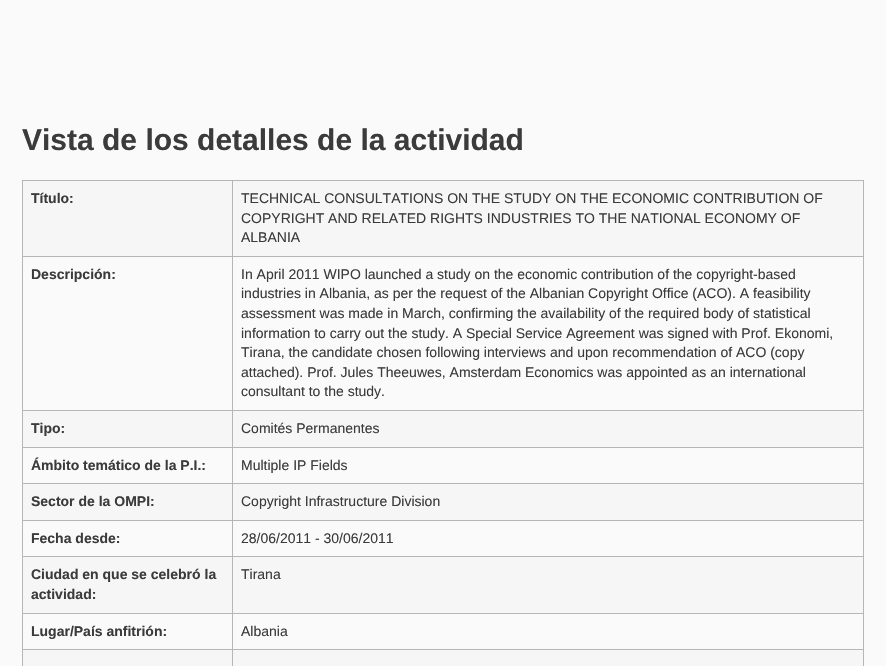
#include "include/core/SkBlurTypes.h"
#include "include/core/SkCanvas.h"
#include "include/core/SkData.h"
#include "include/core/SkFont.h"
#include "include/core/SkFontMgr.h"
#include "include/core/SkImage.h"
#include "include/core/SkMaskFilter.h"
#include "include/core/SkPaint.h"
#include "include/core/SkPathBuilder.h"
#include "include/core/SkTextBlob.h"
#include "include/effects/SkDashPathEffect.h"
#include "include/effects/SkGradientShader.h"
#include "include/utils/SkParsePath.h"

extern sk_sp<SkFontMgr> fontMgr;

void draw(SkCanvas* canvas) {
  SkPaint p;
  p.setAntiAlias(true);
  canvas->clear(SkColorSetRGB(250, 250, 250));
  p.setColor(SkColorSetRGB(180, 183, 182));
  canvas->drawRect(SkRect::MakeLTRB(22, 180, 864, 181), p);
  canvas->drawRect(SkRect::MakeLTRB(863, 180, 864, 666), p);
  p.setColor(SkColorSetRGB(245, 246, 245));
  canvas->drawRect(SkRect::MakeLTRB(23, 181, 232, 256), p);
  p.setColor(SkColorSetRGB(180, 183, 182));
  canvas->drawRect(SkRect::MakeLTRB(22, 181, 23, 256), p);
  p.setColor(SkColorSetRGB(245, 246, 245));
  canvas->drawRect(SkRect::MakeLTRB(233, 181, 863, 256), p);
  p.setColor(SkColorSetRGB(180, 183, 182));
  canvas->drawRect(SkRect::MakeLTRB(232, 181, 233, 256), p);
  canvas->drawRect(SkRect::MakeLTRB(22, 256, 863, 257), p);
  canvas->drawRect(SkRect::MakeLTRB(22, 256, 23, 410), p);
  canvas->drawRect(SkRect::MakeLTRB(232, 256, 233, 410), p);
  p.setColor(SkColorSetRGB(245, 246, 245));
  canvas->drawRect(SkRect::MakeLTRB(23, 411, 232, 447), p);
  p.setColor(SkColorSetRGB(180, 183, 182));
  canvas->drawRect(SkRect::MakeLTRB(22, 410, 863, 411), p);
  canvas->drawRect(SkRect::MakeLTRB(22, 410, 23, 447), p);
  p.setColor(SkColorSetRGB(245, 246, 245));
  canvas->drawRect(SkRect::MakeLTRB(233, 411, 863, 447), p);
  p.setColor(SkColorSetRGB(180, 183, 182));
  canvas->drawRect(SkRect::MakeLTRB(232, 410, 233, 447), p);
  canvas->drawRect(SkRect::MakeLTRB(22, 447, 863, 448), p);
  canvas->drawRect(SkRect::MakeLTRB(22, 447, 23, 483), p);
  canvas->drawRect(SkRect::MakeLTRB(232, 447, 233, 483), p);
  p.setColor(SkColorSetRGB(245, 246, 245));
  canvas->drawRect(SkRect::MakeLTRB(23, 484, 232, 520), p);
  p.setColor(SkColorSetRGB(180, 183, 182));
  canvas->drawRect(SkRect::MakeLTRB(22, 483, 863, 484), p);
  canvas->drawRect(SkRect::MakeLTRB(22, 483, 23, 520), p);
  p.setColor(SkColorSetRGB(245, 246, 245));
  canvas->drawRect(SkRect::MakeLTRB(233, 484, 863, 520), p);
  p.setColor(SkColorSetRGB(180, 183, 182));
  canvas->drawRect(SkRect::MakeLTRB(232, 483, 233, 520), p);
  canvas->drawRect(SkRect::MakeLTRB(22, 520, 863, 521), p);
  canvas->drawRect(SkRect::MakeLTRB(22, 520, 23, 556), p);
  canvas->drawRect(SkRect::MakeLTRB(232, 520, 233, 556), p);
  p.setColor(SkColorSetRGB(245, 246, 245));
  canvas->drawRect(SkRect::MakeLTRB(23, 557, 232, 613), p);
  p.setColor(SkColorSetRGB(180, 183, 182));
  canvas->drawRect(SkRect::MakeLTRB(22, 556, 863, 557), p);
  canvas->drawRect(SkRect::MakeLTRB(22, 556, 23, 613), p);
  p.setColor(SkColorSetRGB(245, 246, 245));
  canvas->drawRect(SkRect::MakeLTRB(233, 557, 863, 613), p);
  p.setColor(SkColorSetRGB(180, 183, 182));
  canvas->drawRect(SkRect::MakeLTRB(232, 556, 233, 613), p);
  canvas->drawRect(SkRect::MakeLTRB(22, 613, 863, 614), p);
  canvas->drawRect(SkRect::MakeLTRB(22, 613, 23, 649), p);
  canvas->drawRect(SkRect::MakeLTRB(232, 613, 233, 649), p);
  p.setColor(SkColorSetRGB(245, 246, 245));
  canvas->drawRect(SkRect::MakeLTRB(23, 650, 232, 666), p);
  p.setColor(SkColorSetRGB(180, 183, 182));
  canvas->drawRect(SkRect::MakeLTRB(22, 649, 863, 650), p);
  canvas->drawRect(SkRect::MakeLTRB(22, 649, 23, 666), p);
  p.setColor(SkColorSetRGB(245, 246, 245));
  canvas->drawRect(SkRect::MakeLTRB(233, 650, 863, 666), p);
  p.setColor(SkColorSetRGB(180, 183, 182));
  canvas->drawRect(SkRect::MakeLTRB(232, 649, 233, 666), p);
  SkFont font1(fontMgr->matchFamilyStyle("Liberation Sans", SkFontStyle::Bold()), 30);
  font1.setSubpixel(true);
  p.setColor(SkColorSetRGB(59, 59, 59));
  canvas->drawString("Vista de los detalles de la actividad", 22, 150, font1, p);
  SkFont font2(fontMgr->matchFamilyStyle("Liberation Sans", SkFontStyle::Bold()), 14);
  font2.setSubpixel(true);
  canvas->drawString("Título:", 31, 203, font2, p);
  SkFont font3(fontMgr->matchFamilyStyle("Liberation Sans", SkFontStyle::Normal()), 14);
  font3.setSubpixel(true);
  canvas->drawString("TECHNICAL CONSULTATIONS ON THE STUDY ON THE ECONOMIC CONTRIBUTION OF", 241, 203, font3, p);
  canvas->drawString("COPYRIGHT AND RELATED RIGHTS INDUSTRIES TO THE NATIONAL ECONOMY OF", 241, 223, font3, p);
  canvas->drawString("ALBANIA", 241, 242, font3, p);
  canvas->drawString("Descripción:", 31, 279, font2, p);
  canvas->drawString("In April 2011 WIPO launched a study on the economic contribution of the copyright-based", 241, 279, font3, p);
  canvas->drawString("industries in Albania, as per the request of the Albanian Copyright Office (ACO). A feasibility", 241, 298, font3, p);
  canvas->drawString("assessment was made in March, confirming the availability of the required body of statistical", 241, 318, font3, p);
  canvas->drawString("information to carry out the study. A Special Service Agreement was signed with Prof. Ekonomi,", 241, 338, font3, p);
  canvas->drawString("Tirana, the candidate chosen following interviews and upon recommendation of ACO (copy", 241, 357, font3, p);
  canvas->drawString("attached). Prof. Jules Theeuwes, Amsterdam Economics was appointed as an international", 241, 377, font3, p);
  canvas->drawString("consultant to the study.", 241, 396, font3, p);
  canvas->drawString("Tipo:", 31, 433, font2, p);
  canvas->drawString("Comités Permanentes", 241, 433, font3, p);
  canvas->drawString("Ámbito temático de la P.I.:", 31, 470, font2, p);
  canvas->drawString("Multiple IP Fields", 241, 470, font3, p);
  canvas->drawString("Sector de la OMPI:", 31, 506, font2, p);
  canvas->drawString("Copyright Infrastructure Division", 241, 506, font3, p);
  canvas->drawString("Fecha desde:", 31, 543, font2, p);
  canvas->drawString("28/06/2011 - 30/06/2011", 241, 543, font3, p);
  canvas->drawString("Ciudad en que se celebró la", 31, 579, font2, p);
  canvas->drawString("actividad:", 31, 599, font2, p);
  canvas->drawString("Tirana", 241, 579, font3, p);
  canvas->drawString("Lugar/País anfitrión:", 31, 636, font2, p);
  canvas->drawString("Albania", 241, 636, font3, p);
}
